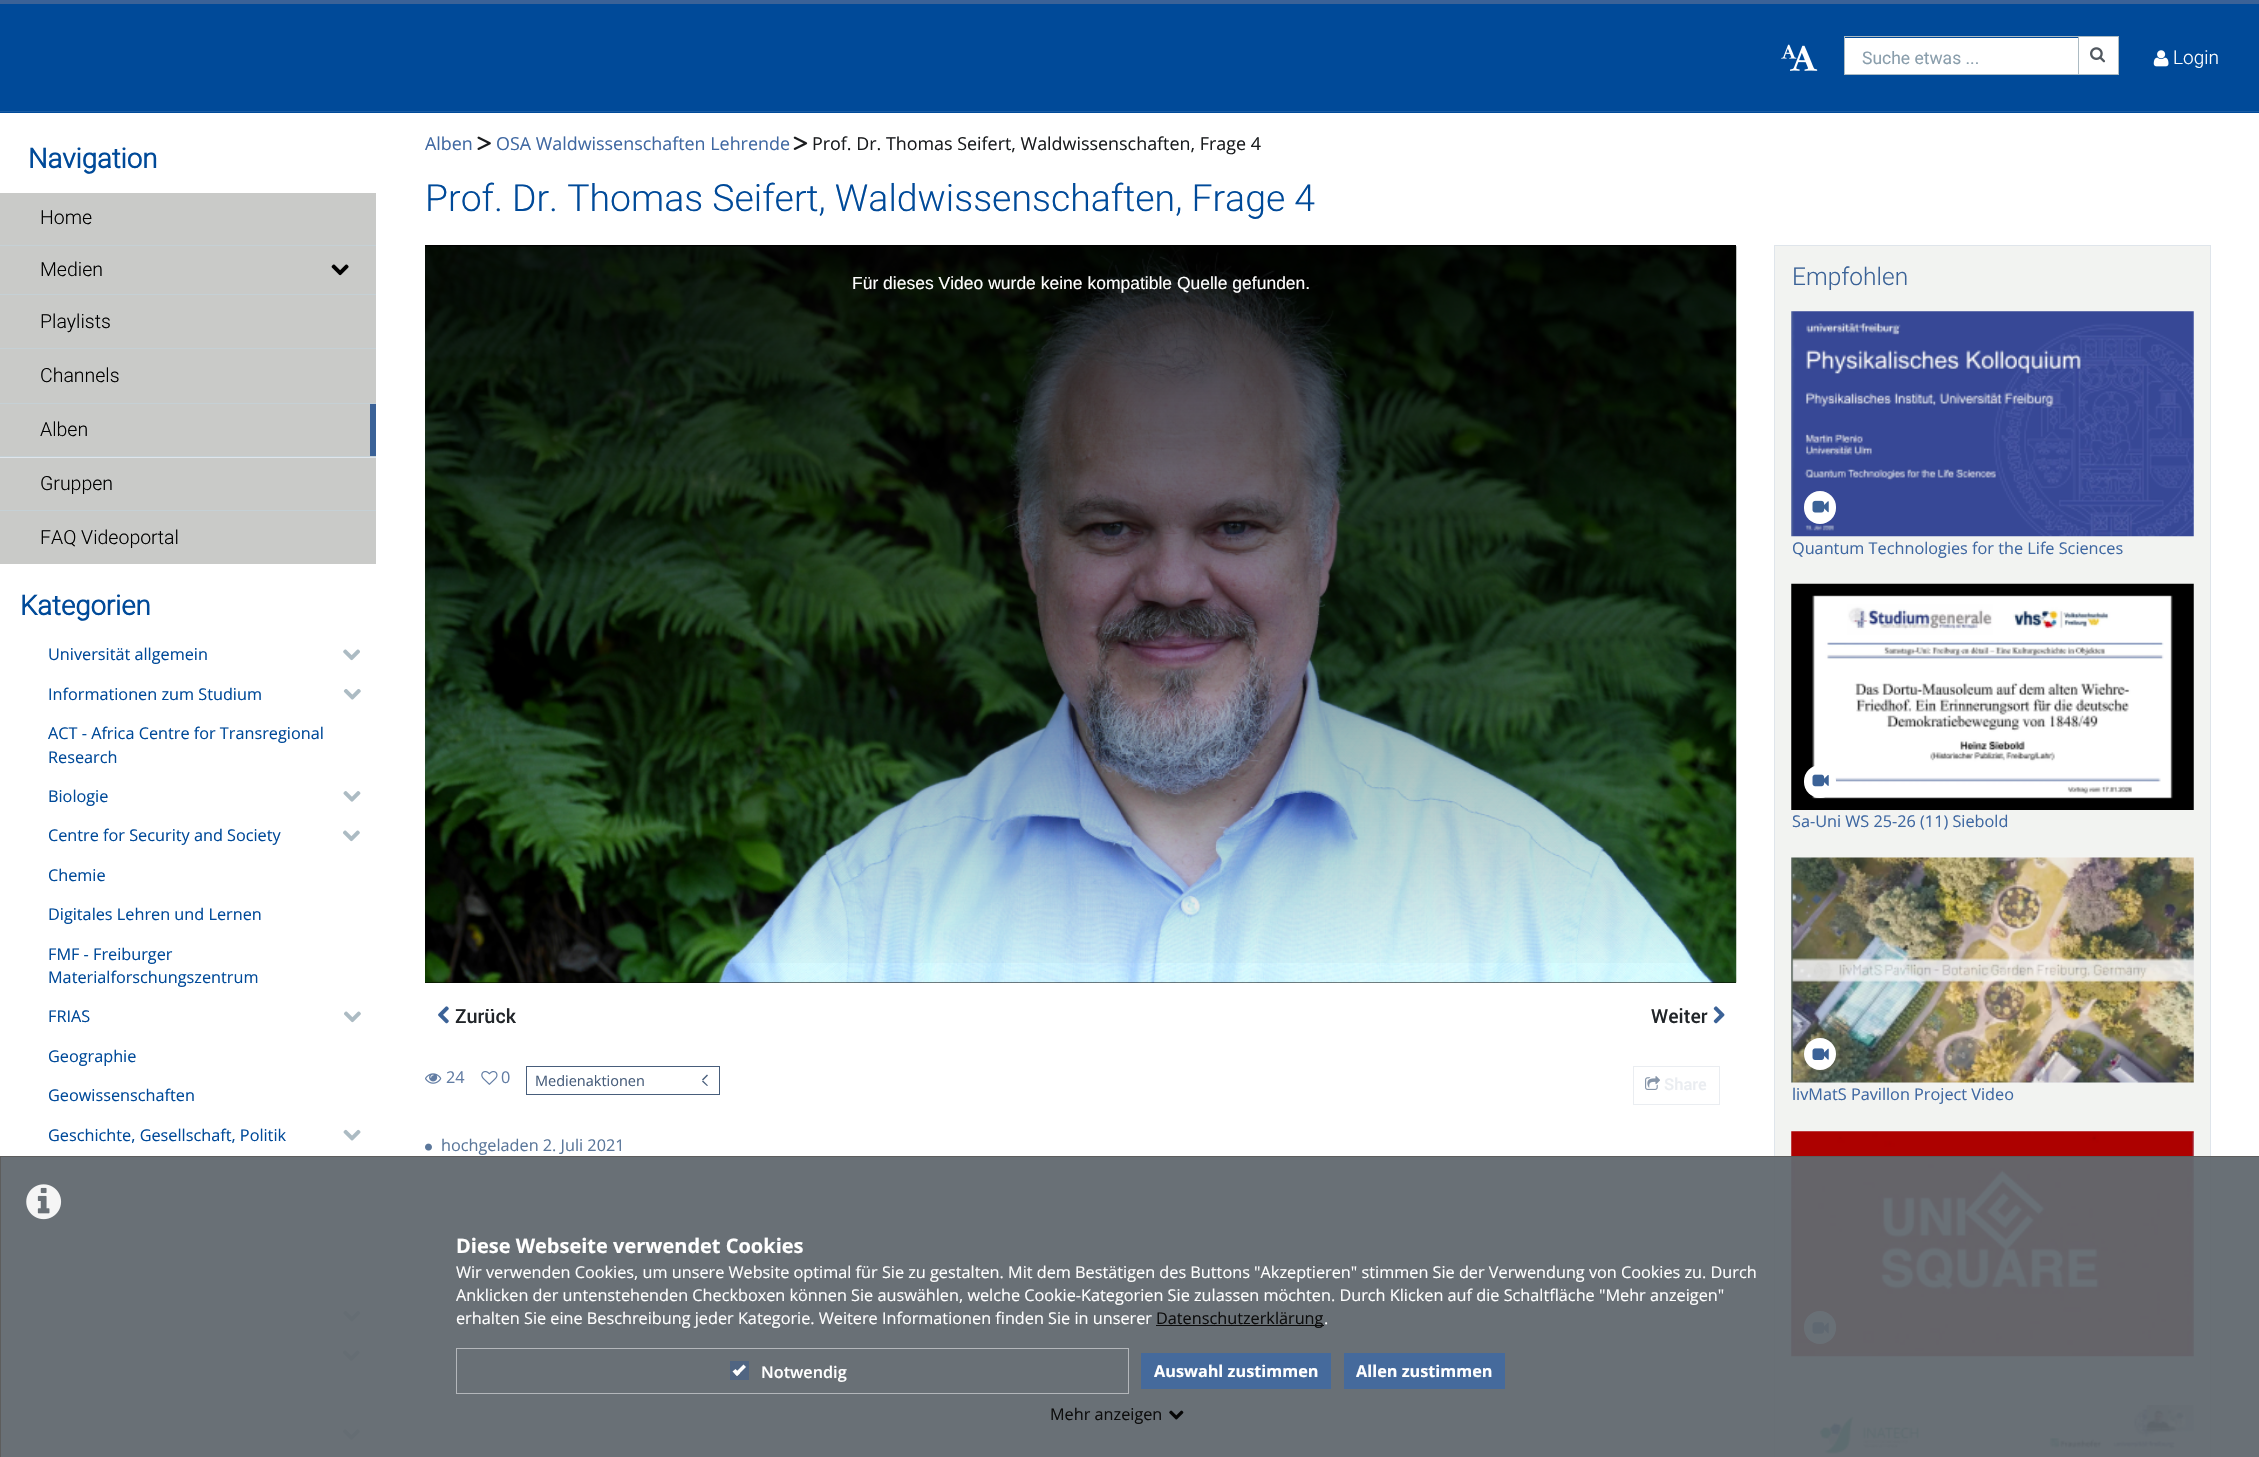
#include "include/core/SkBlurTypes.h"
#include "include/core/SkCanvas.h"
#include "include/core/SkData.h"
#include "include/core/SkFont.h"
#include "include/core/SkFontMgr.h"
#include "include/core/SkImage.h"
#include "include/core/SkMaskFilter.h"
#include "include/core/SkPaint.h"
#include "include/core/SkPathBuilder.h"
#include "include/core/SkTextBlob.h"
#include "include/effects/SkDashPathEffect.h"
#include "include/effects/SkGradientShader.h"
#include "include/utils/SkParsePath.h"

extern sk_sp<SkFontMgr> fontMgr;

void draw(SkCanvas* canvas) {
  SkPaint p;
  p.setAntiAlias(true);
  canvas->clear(SK_ColorWHITE);
  p.setColor(SkColorSetRGB(0, 74, 153));
  canvas->drawRect(SkRect::MakeLTRB(0, 4, 2259, 113), p);
  p.setColor(SkColorSetRGB(26, 92, 163));
  canvas->drawRect(SkRect::MakeLTRB(0, 111, 2259, 112), p);
  p.setColor(SkColorSetRGB(59, 98, 151));
  canvas->drawRect(SkRect::MakeLTRB(0, 0, 2259, 4), p);
  canvas->drawImageRect(SkImages::DeferredFromEncodedData(SkData::MakeFromFileName("images/1.png")), SkRect::MakeLTRB(1781, 44, 1797, 59), SkSamplingOptions());
  canvas->drawImageRect(SkImages::DeferredFromEncodedData(SkData::MakeFromFileName("images/2.png")), SkRect::MakeLTRB(1790, 45, 1818, 71), SkSamplingOptions());
  p.setColor(SK_ColorWHITE);
  canvas->drawRect(SkRect::MakeLTRB(1845, 38, 2078, 74), p);
  p.setStyle(SkPaint::kStroke_Style);
  p.setStrokeWidth(1);
  p.setColor(SkColorSetRGB(172, 187, 195));
  canvas->drawRect(SkRect::MakeLTRB(1844.5f, 36.5f, 2078.5f, 74.5f), p);
  p.setStyle(SkPaint::kFill_Style);
  p.setColor(SK_ColorWHITE);
  canvas->drawRect(SkRect::MakeLTRB(2078.5f, 36.5f, 2118.5f, 74.5f), p);
  p.setStyle(SkPaint::kStroke_Style);
  p.setColor(SkColorSetRGB(172, 187, 195));
  canvas->drawRect(SkRect::MakeLTRB(2078.5f, 36.5f, 2118.5f, 74.5f), p);
  canvas->drawImageRect(SkImages::DeferredFromEncodedData(SkData::MakeFromFileName("images/3.png")), SkRect::MakeLTRB(2090, 47, 2106, 63), SkSamplingOptions());
  canvas->drawImageRect(SkImages::DeferredFromEncodedData(SkData::MakeFromFileName("images/4.png")), SkRect::MakeLTRB(2153, 50, 2169, 67), SkSamplingOptions());
  p.setStyle(SkPaint::kFill_Style);
  p.setColor(SkColorSetRGB(201, 202, 200));
  canvas->drawRect(SkRect::MakeLTRB(0, 193, 376, 245), p);
  p.setColor(SkColorSetRGB(197, 208, 213));
  canvas->drawRect(SkRect::MakeLTRB(0, 245, 376, 246), p);
  p.setColor(SkColorSetRGB(201, 202, 200));
  canvas->drawRect(SkRect::MakeLTRB(0, 246, 376, 294), p);
  canvas->drawImageRect(SkImages::DeferredFromEncodedData(SkData::MakeFromFileName("images/5.png")), SkRect::MakeLTRB(331, 264, 349, 276), SkSamplingOptions());
  p.setColor(SkColorSetRGB(197, 208, 213));
  canvas->drawRect(SkRect::MakeLTRB(0, 294, 376, 295), p);
  p.setColor(SkColorSetRGB(201, 202, 200));
  canvas->drawRect(SkRect::MakeLTRB(0, 295, 376, 348), p);
  p.setColor(SkColorSetRGB(197, 208, 213));
  canvas->drawRect(SkRect::MakeLTRB(0, 348, 376, 349), p);
  p.setColor(SkColorSetRGB(201, 202, 200));
  canvas->drawRect(SkRect::MakeLTRB(0, 349, 376, 403), p);
  p.setColor(SkColorSetRGB(197, 208, 213));
  canvas->drawRect(SkRect::MakeLTRB(0, 403, 376, 404), p);
  p.setColor(SkColorSetRGB(201, 202, 200));
  canvas->drawRect(SkRect::MakeLTRB(0, 404, 370, 456), p);
  p.setColor(SkColorSetRGB(59, 98, 151));
  canvas->drawRect(SkRect::MakeLTRB(370, 404, 376, 456), p);
  p.setColor(SkColorSetRGB(223, 229, 235));
  canvas->drawRect(SkRect::MakeLTRB(0, 457, 376, 458), p);
  p.setColor(SkColorSetRGB(197, 208, 213));
  canvas->drawRect(SkRect::MakeLTRB(0, 456, 376, 457), p);
  p.setColor(SkColorSetRGB(201, 202, 200));
  canvas->drawRect(SkRect::MakeLTRB(0, 458, 376, 510), p);
  p.setColor(SkColorSetRGB(197, 208, 213));
  canvas->drawRect(SkRect::MakeLTRB(0, 510, 376, 511), p);
  p.setColor(SkColorSetRGB(201, 202, 200));
  canvas->drawRect(SkRect::MakeLTRB(0, 511, 376, 564), p);
  canvas->drawImageRect(SkImages::DeferredFromEncodedData(SkData::MakeFromFileName("images/6.png")), SkRect::MakeLTRB(343, 649, 360, 661), SkSamplingOptions());
  canvas->drawImageRect(SkImages::DeferredFromEncodedData(SkData::MakeFromFileName("images/7.png")), SkRect::MakeLTRB(343, 689, 361, 700), SkSamplingOptions());
  canvas->drawImageRect(SkImages::DeferredFromEncodedData(SkData::MakeFromFileName("images/8.png")), SkRect::MakeLTRB(343, 791, 361, 802), SkSamplingOptions());
  canvas->drawImageRect(SkImages::DeferredFromEncodedData(SkData::MakeFromFileName("images/9.png")), SkRect::MakeLTRB(343, 830, 360, 842), SkSamplingOptions());
  canvas->drawImageRect(SkImages::DeferredFromEncodedData(SkData::MakeFromFileName("images/10.png")), SkRect::MakeLTRB(344, 1011, 361, 1023), SkSamplingOptions());
  canvas->drawImageRect(SkImages::DeferredFromEncodedData(SkData::MakeFromFileName("images/11.png")), SkRect::MakeLTRB(343, 1129, 361, 1141), SkSamplingOptions());
  canvas->drawImageRect(SkImages::DeferredFromEncodedData(SkData::MakeFromFileName("images/12.png")), SkRect::MakeLTRB(343, 1310, 361, 1322), SkSamplingOptions());
  canvas->drawImageRect(SkImages::DeferredFromEncodedData(SkData::MakeFromFileName("images/13.png")), SkRect::MakeLTRB(342, 1350, 360, 1361), SkSamplingOptions());
  canvas->drawImageRect(SkImages::DeferredFromEncodedData(SkData::MakeFromFileName("images/14.png")), SkRect::MakeLTRB(343, 1429, 360, 1440), SkSamplingOptions());
  canvas->drawImageRect(SkImages::DeferredFromEncodedData(SkData::MakeFromFileName("images/15.png")), SkRect::MakeLTRB(477, 136, 491, 150), SkSamplingOptions());
  canvas->drawImageRect(SkImages::DeferredFromEncodedData(SkData::MakeFromFileName("images/16.png")), SkRect::MakeLTRB(793, 136, 808, 150), SkSamplingOptions());
  p.setColor(SK_ColorBLACK);
  canvas->drawRect(SkRect::MakeLTRB(425, 245, 1736, 983), p);
  canvas->drawImageRect(SkImages::DeferredFromEncodedData(SkData::MakeFromFileName("images/17.png")), SkRect::MakeLTRB(425, 246, 1737, 983), SkSamplingOptions());
  {
    const SkColor colors[] = {SkColorSetARGB(204, 0, 0, 0), SkColorSetARGB(0, 0, 0, 0)};
    const float stops[] = {0, 1};
    const SkPoint ends[] = {{1081, 245}, {1081, 983}};
    p.setShader(SkGradientShader::MakeLinear(ends, colors, stops, 2, SkTileMode::kClamp));
    p.setAlpha(255);
  }
  canvas->drawRect(SkRect::MakeLTRB(425, 246, 1736, 963), p);
  canvas->drawImageRect(SkImages::DeferredFromEncodedData(SkData::MakeFromFileName("images/18.png")), SkRect::MakeLTRB(438, 1006, 449, 1024), SkSamplingOptions());
  canvas->drawImageRect(SkImages::DeferredFromEncodedData(SkData::MakeFromFileName("images/19.png")), SkRect::MakeLTRB(1713, 1006, 1725, 1024), SkSamplingOptions());
  p.setShader(nullptr);
  p.setColor(SkColorSetRGB(242, 243, 241));
  canvas->drawRect(SkRect::MakeLTRB(1774.5f, 245.5f, 2210.5f, 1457.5f), p);
  p.setStyle(SkPaint::kStroke_Style);
  p.setColor(SkColorSetRGB(223, 229, 235));
  canvas->drawRect(SkRect::MakeLTRB(1774.5f, 245.5f, 2210.5f, 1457.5f), p);
  p.setStyle(SkPaint::kFill_Style);
  p.setColor(SkColorSetRGB(236, 239, 242));
  canvas->drawRect(SkRect::MakeLTRB(1791, 311, 2194, 536), p);
  canvas->drawImageRect(SkImages::DeferredFromEncodedData(SkData::MakeFromFileName("images/20.png")), SkRect::MakeLTRB(1791, 311, 2194, 537), SkSamplingOptions());
  p.setColor(SK_ColorWHITE);
  canvas->drawRoundRect(SkRect::MakeLTRB(1804, 491, 1836, 524), 16, 16, p);
  canvas->drawImageRect(SkImages::DeferredFromEncodedData(SkData::MakeFromFileName("images/21.png")), SkRect::MakeLTRB(1812, 500, 1829, 513), SkSamplingOptions());
  canvas->drawImageRect(SkImages::DeferredFromEncodedData(SkData::MakeFromFileName("images/22.png")), SkRect::MakeLTRB(1791, 583, 2194, 810), SkSamplingOptions());
  canvas->drawRoundRect(SkRect::MakeLTRB(1804, 765, 1836, 798), 16, 16, p);
  canvas->drawImageRect(SkImages::DeferredFromEncodedData(SkData::MakeFromFileName("images/23.png")), SkRect::MakeLTRB(1812, 774, 1829, 787), SkSamplingOptions());
  p.setColor(SkColorSetRGB(236, 239, 242));
  canvas->drawRect(SkRect::MakeLTRB(1791, 858, 2194, 1083), p);
  canvas->drawImageRect(SkImages::DeferredFromEncodedData(SkData::MakeFromFileName("images/24.png")), SkRect::MakeLTRB(1791, 857, 2194, 1083), SkSamplingOptions());
  p.setColor(SK_ColorWHITE);
  canvas->drawCircle(1820, 1054, 16, p);
  canvas->drawImageRect(SkImages::DeferredFromEncodedData(SkData::MakeFromFileName("images/25.png")), SkRect::MakeLTRB(1812, 1048, 1829, 1060), SkSamplingOptions());
  p.setColor(SkColorSetRGB(236, 239, 242));
  canvas->drawRect(SkRect::MakeLTRB(1791, 1131, 2194, 1356), p);
  canvas->drawImageRect(SkImages::DeferredFromEncodedData(SkData::MakeFromFileName("images/26.png")), SkRect::MakeLTRB(1791, 1131, 2194, 1357), SkSamplingOptions());
  p.setColor(SK_ColorWHITE);
  canvas->drawRoundRect(SkRect::MakeLTRB(1804, 1311, 1836, 1344), 16, 16, p);
  canvas->drawImageRect(SkImages::DeferredFromEncodedData(SkData::MakeFromFileName("images/27.png")), SkRect::MakeLTRB(1812, 1322, 1829, 1334), SkSamplingOptions());
  canvas->drawImageRect(SkImages::DeferredFromEncodedData(SkData::MakeFromFileName("images/28.png")), SkRect::MakeLTRB(1791, 1405, 2194, 1457), SkSamplingOptions());
  canvas->drawImageRect(SkImages::DeferredFromEncodedData(SkData::MakeFromFileName("images/29.png")), SkRect::MakeLTRB(425, 1073, 442, 1084), SkSamplingOptions());
  canvas->drawImageRect(SkImages::DeferredFromEncodedData(SkData::MakeFromFileName("images/30.png")), SkRect::MakeLTRB(481, 1071, 498, 1085), SkSamplingOptions());
  p.setStyle(SkPaint::kStroke_Style);
  p.setColor(SkColorSetRGB(71, 93, 123));
  canvas->drawRect(SkRect::MakeLTRB(526.5f, 1066.5f, 719.5f, 1094.5f), p);
  p.setStyle(SkPaint::kFill_Style);
  canvas->drawPath(SkPathBuilder().moveTo(703, 1080.5f).lineTo(708, 1085.5f).lineTo(707, 1086).lineTo(702, 1081.5f).close().detach(), p);
  canvas->drawPath(SkPathBuilder().moveTo(707, 1074.5f).lineTo(708, 1075.5f).lineTo(703, 1080.5f).lineTo(702, 1079.5f).close().detach(), p);
  p.setStyle(SkPaint::kStroke_Style);
  p.setColor(SkColorSetRGB(234, 237, 241));
  canvas->drawRect(SkRect::MakeLTRB(1633.5f, 1066.5f, 1719.5f, 1104.5f), p);
  canvas->drawImageRect(SkImages::DeferredFromEncodedData(SkData::MakeFromFileName("images/31.png")), SkRect::MakeLTRB(1645, 1076, 1660, 1090), SkSamplingOptions());
  canvas->drawImageRect(SkImages::DeferredFromEncodedData(SkData::MakeFromFileName("images/32.png")), SkRect::MakeLTRB(425, 1143, 432, 1151), SkSamplingOptions());
  p.setStyle(SkPaint::kFill_Style);
  p.setColor(SkColorSetARGB(242, 97, 104, 111));
  canvas->drawRect(SkRect::MakeLTRB(0, 1156, 2259, 1457), p);
  p.setStyle(SkPaint::kStroke_Style);
  p.setColor(SkColorSetARGB(242, 92, 92, 92));
  canvas->drawRect(SkRect::MakeLTRB(0.5f, 1156.5f, 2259.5f, 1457.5f), p);
  canvas->drawImageRect(SkImages::DeferredFromEncodedData(SkData::MakeFromFileName("images/33.png")), SkRect::MakeLTRB(26, 1184, 62, 1220), SkSamplingOptions());
  p.setStyle(SkPaint::kFill_Style);
  p.setColor(SkColorSetRGB(13, 13, 13));
  canvas->drawRect(SkRect::MakeLTRB(1156, 1325, 1324, 1326), p);
  p.setStyle(SkPaint::kStroke_Style);
  p.setColor(SkColorSetRGB(180, 183, 187));
  canvas->drawRect(SkRect::MakeLTRB(456.5f, 1348.5f, 1128.5f, 1393.5f), p);
  p.setStyle(SkPaint::kFill_Style);
  p.setColor(SkColorSetRGB(80, 101, 130));
  canvas->drawRect(SkRect::MakeLTRB(730, 1361, 749, 1380), p);
  p.setColor(SK_ColorWHITE);
  canvas->drawPath(SkPathBuilder().moveTo(743.5f, 1364.5f).lineTo(746, 1367).lineTo(737, 1376).lineTo(734.5f, 1373.5f).close().detach(), p);
  canvas->drawPath(SkPathBuilder().moveTo(735.5f, 1369).lineTo(740, 1373.5f).lineTo(737, 1376).lineTo(732.5f, 1371.5f).close().detach(), p);
  p.setColor(SkColorSetRGB(69, 106, 156));
  canvas->drawRect(SkRect::MakeLTRB(1141, 1353, 1331, 1389), p);
  canvas->drawRect(SkRect::MakeLTRB(1344, 1353, 1505, 1389), p);
  canvas->drawImageRect(SkImages::DeferredFromEncodedData(SkData::MakeFromFileName("images/34.png")), SkRect::MakeLTRB(1169, 1410, 1184, 1420), SkSamplingOptions());
  SkFont font1(fontMgr->matchFamilyStyle("Roboto", SkFontStyle::Normal()), 17.5f);
  font1.setSubpixel(true);
  p.setColor(SkColorSetRGB(138, 158, 172));
  canvas->drawString("Suche etwas ...", 1862, 64, font1, p);
  SkFont font2(fontMgr->matchFamilyStyle("Roboto", SkFontStyle(300, SkFontStyle::kNormal_Width, SkFontStyle::kUpright_Slant)), 19);
  font2.setSubpixel(true);
  p.setColor(SK_ColorWHITE);
  canvas->drawString("Login", 2173, 64, font2, p);
  SkFont font3(fontMgr->matchFamilyStyle("Roboto", SkFontStyle::Bold()), 27.5f);
  font3.setSubpixel(true);
  p.setColor(SkColorSetRGB(0, 74, 153));
  canvas->drawString("Navigation", 28, 168, font3, p);
  SkFont font4(fontMgr->matchFamilyStyle("Roboto", SkFontStyle(300, SkFontStyle::kNormal_Width, SkFontStyle::kUpright_Slant)), 19.5f);
  font4.setSubpixel(true);
  p.setColor(SK_ColorBLACK);
  canvas->drawString("Home", 40, 224, font4, p);
  canvas->drawString("Medien", 40, 276, font4, p);
  canvas->drawString("Playlists", 40, 328, font4, p);
  canvas->drawString("Channels", 40, 382, font4, p);
  canvas->drawString("Alben", 40, 436, font4, p);
  canvas->drawString("Gruppen", 40, 490, font4, p);
  canvas->drawString("FAQ Videoportal", 40, 544, font4, p);
  p.setColor(SkColorSetRGB(0, 74, 153));
  canvas->drawString("Kategorien", 20, 615, font3, p);
  SkFont font5(fontMgr->matchFamilyStyle("Open Sans", SkFontStyle::Normal()), 16.25f);
  font5.setSubpixel(true);
  canvas->drawString("Universität allgemein", 48, 660, font5, p);
  canvas->drawString("Informationen zum Studium", 48, 700, font5, p);
  canvas->drawString("ACT - Africa Centre for Transregional", 48, 739, font5, p);
  canvas->drawString("Research", 48, 763, font5, p);
  canvas->drawString("Biologie", 48, 802, font5, p);
  canvas->drawString("Centre for Security and Society", 48, 841, font5, p);
  canvas->drawString("Chemie", 48, 881, font5, p);
  canvas->drawString("Digitales Lehren und Lernen", 48, 920, font5, p);
  canvas->drawString("FMF - Freiburger", 48, 960, font5, p);
  canvas->drawString("Materialforschungszentrum", 48, 983, font5, p);
  canvas->drawString("FRIAS", 48, 1022, font5, p);
  canvas->drawString("Geographie", 48, 1062, font5, p);
  canvas->drawString("Geowissenschaften", 48, 1101, font5, p);
  canvas->drawString("Geschichte, Gesellschaft, Politik", 48, 1141, font5, p);
  SkFont font6(fontMgr->matchFamilyStyle("Open Sans", SkFontStyle::Normal()), 17.9f);
  font6.setSubpixel(true);
  p.setColor(SkColorSetRGB(63, 104, 162));
  canvas->drawString("Alben", 425, 150, font6, p);
  canvas->drawString("OSA Waldwissenschaften Lehrende", 496, 150, font6, p);
  p.setColor(SkColorSetRGB(26, 28, 30));
  canvas->drawString("Prof. Dr. Thomas Seifert, Waldwissenschaften, Frage 4", 812, 150, font6, p);
  SkFont font7(fontMgr->matchFamilyStyle("Roboto", SkFontStyle(300, SkFontStyle::kNormal_Width, SkFontStyle::kUpright_Slant)), 37.4f);
  font7.setSubpixel(true);
  p.setColor(SkColorSetRGB(0, 74, 153));
  canvas->drawString("Prof. Dr. Thomas Seifert, Waldwissenschaften, Frage 4", 425, 211, font7, p);
  SkFont font8(fontMgr->matchFamilyStyle("Liberation Sans", SkFontStyle::Normal()), 17.5f);
  font8.setSubpixel(true);
  p.setColor(SK_ColorWHITE);
  canvas->drawString("Für dieses Video wurde keine kompatible Quelle gefunden.", 852, 289, font8, p);
  SkFont font9(fontMgr->matchFamilyStyle("Roboto", SkFontStyle(500, SkFontStyle::kNormal_Width, SkFontStyle::kUpright_Slant)), 19.5f);
  font9.setSubpixel(true);
  p.setColor(SkColorSetRGB(33, 37, 41));
  canvas->drawString("Zurück", 455, 1023, font9, p);
  canvas->drawString("Weiter", 1651, 1023, font9, p);
  SkFont font10(fontMgr->matchFamilyStyle("Roboto", SkFontStyle(300, SkFontStyle::kNormal_Width, SkFontStyle::kUpright_Slant)), 24.5f);
  font10.setSubpixel(true);
  p.setColor(SkColorSetRGB(59, 98, 151));
  canvas->drawString("Empfohlen", 1792, 285, font10, p);
  p.setColor(SkColorSetRGB(63, 104, 162));
  canvas->drawString("Quantum Technologies for the Life Sciences", 1792, 554, font5, p);
  canvas->drawString("Sa-Uni WS 25-26 (11) Siebold", 1792, 827, font5, p);
  canvas->drawString("livMatS Pavillon Project Video", 1792, 1100, font5, p);
  p.setColor(SkColorSetRGB(97, 124, 163));
  canvas->drawString("24", 446, 1083, font5, p);
  canvas->drawString("0", 501, 1083, font5, p);
  SkFont font11(fontMgr->matchFamilyStyle("Open Sans", SkFontStyle::Normal()), 14.5f);
  font11.setSubpixel(true);
  p.setColor(SkColorSetRGB(71, 93, 123));
  canvas->drawString("Medienaktionen", 535, 1086, font11, p);
  SkFont font12(fontMgr->matchFamilyStyle("Roboto", SkFontStyle(500, SkFontStyle::kNormal_Width, SkFontStyle::kUpright_Slant)), 16.25f);
  font12.setSubpixel(true);
  p.setColor(SkColorSetRGB(234, 237, 241));
  canvas->drawString("Share", 1664, 1090, font12, p);
  p.setColor(SkColorSetRGB(91, 119, 154));
  canvas->drawString("hochgeladen 2. Juli 2021", 441, 1151, font5, p);
  SkFont font13(fontMgr->matchFamilyStyle("Open Sans", SkFontStyle::Bold()), 20);
  font13.setSubpixel(true);
  p.setColor(SK_ColorWHITE);
  canvas->drawString("Diese Webseite verwendet Cookies", 456, 1253, font13, p);
  canvas->drawString("Wir verwenden Cookies, um unsere Website optimal für Sie zu gestalten. Mit dem Bestätigen des Buttons \"Akzeptieren\" stimmen Sie der Verwendung von Cookies zu. Durch", 456, 1278, font5, p);
  canvas->drawString("Anklicken der untenstehenden Checkboxen können Sie auswählen, welche Cookie-Kategorien Sie zulassen möchten. Durch Klicken auf die Schaltfläche \"Mehr anzeigen\"", 456, 1301, font5, p);
  canvas->drawString("erhalten Sie eine Beschreibung jeder Kategorie. Weitere Informationen finden Sie in unserer", 456, 1324, font5, p);
  p.setColor(SkColorSetRGB(13, 13, 13));
  canvas->drawString("Datenschutzerklärung", 1156, 1324, font5, p);
  p.setColor(SK_ColorWHITE);
  canvas->drawString(".", 1324, 1324, font5, p);
  SkFont font14(fontMgr->matchFamilyStyle("Open Sans", SkFontStyle(600, SkFontStyle::kNormal_Width, SkFontStyle::kUpright_Slant)), 16.25f);
  font14.setSubpixel(true);
  canvas->drawString("Notwendig", 761, 1378, font14, p);
  SkFont font15(fontMgr->matchFamilyStyle("Open Sans", SkFontStyle::Bold()), 16.25f);
  font15.setSubpixel(true);
  canvas->drawString("Auswahl zustimmen", 1154, 1377, font15, p);
  canvas->drawString("Allen zustimmen", 1356, 1377, font15, p);
  p.setColor(SkColorSetRGB(13, 13, 13));
  canvas->drawString("Mehr anzeigen", 1050, 1420, font5, p);
}
